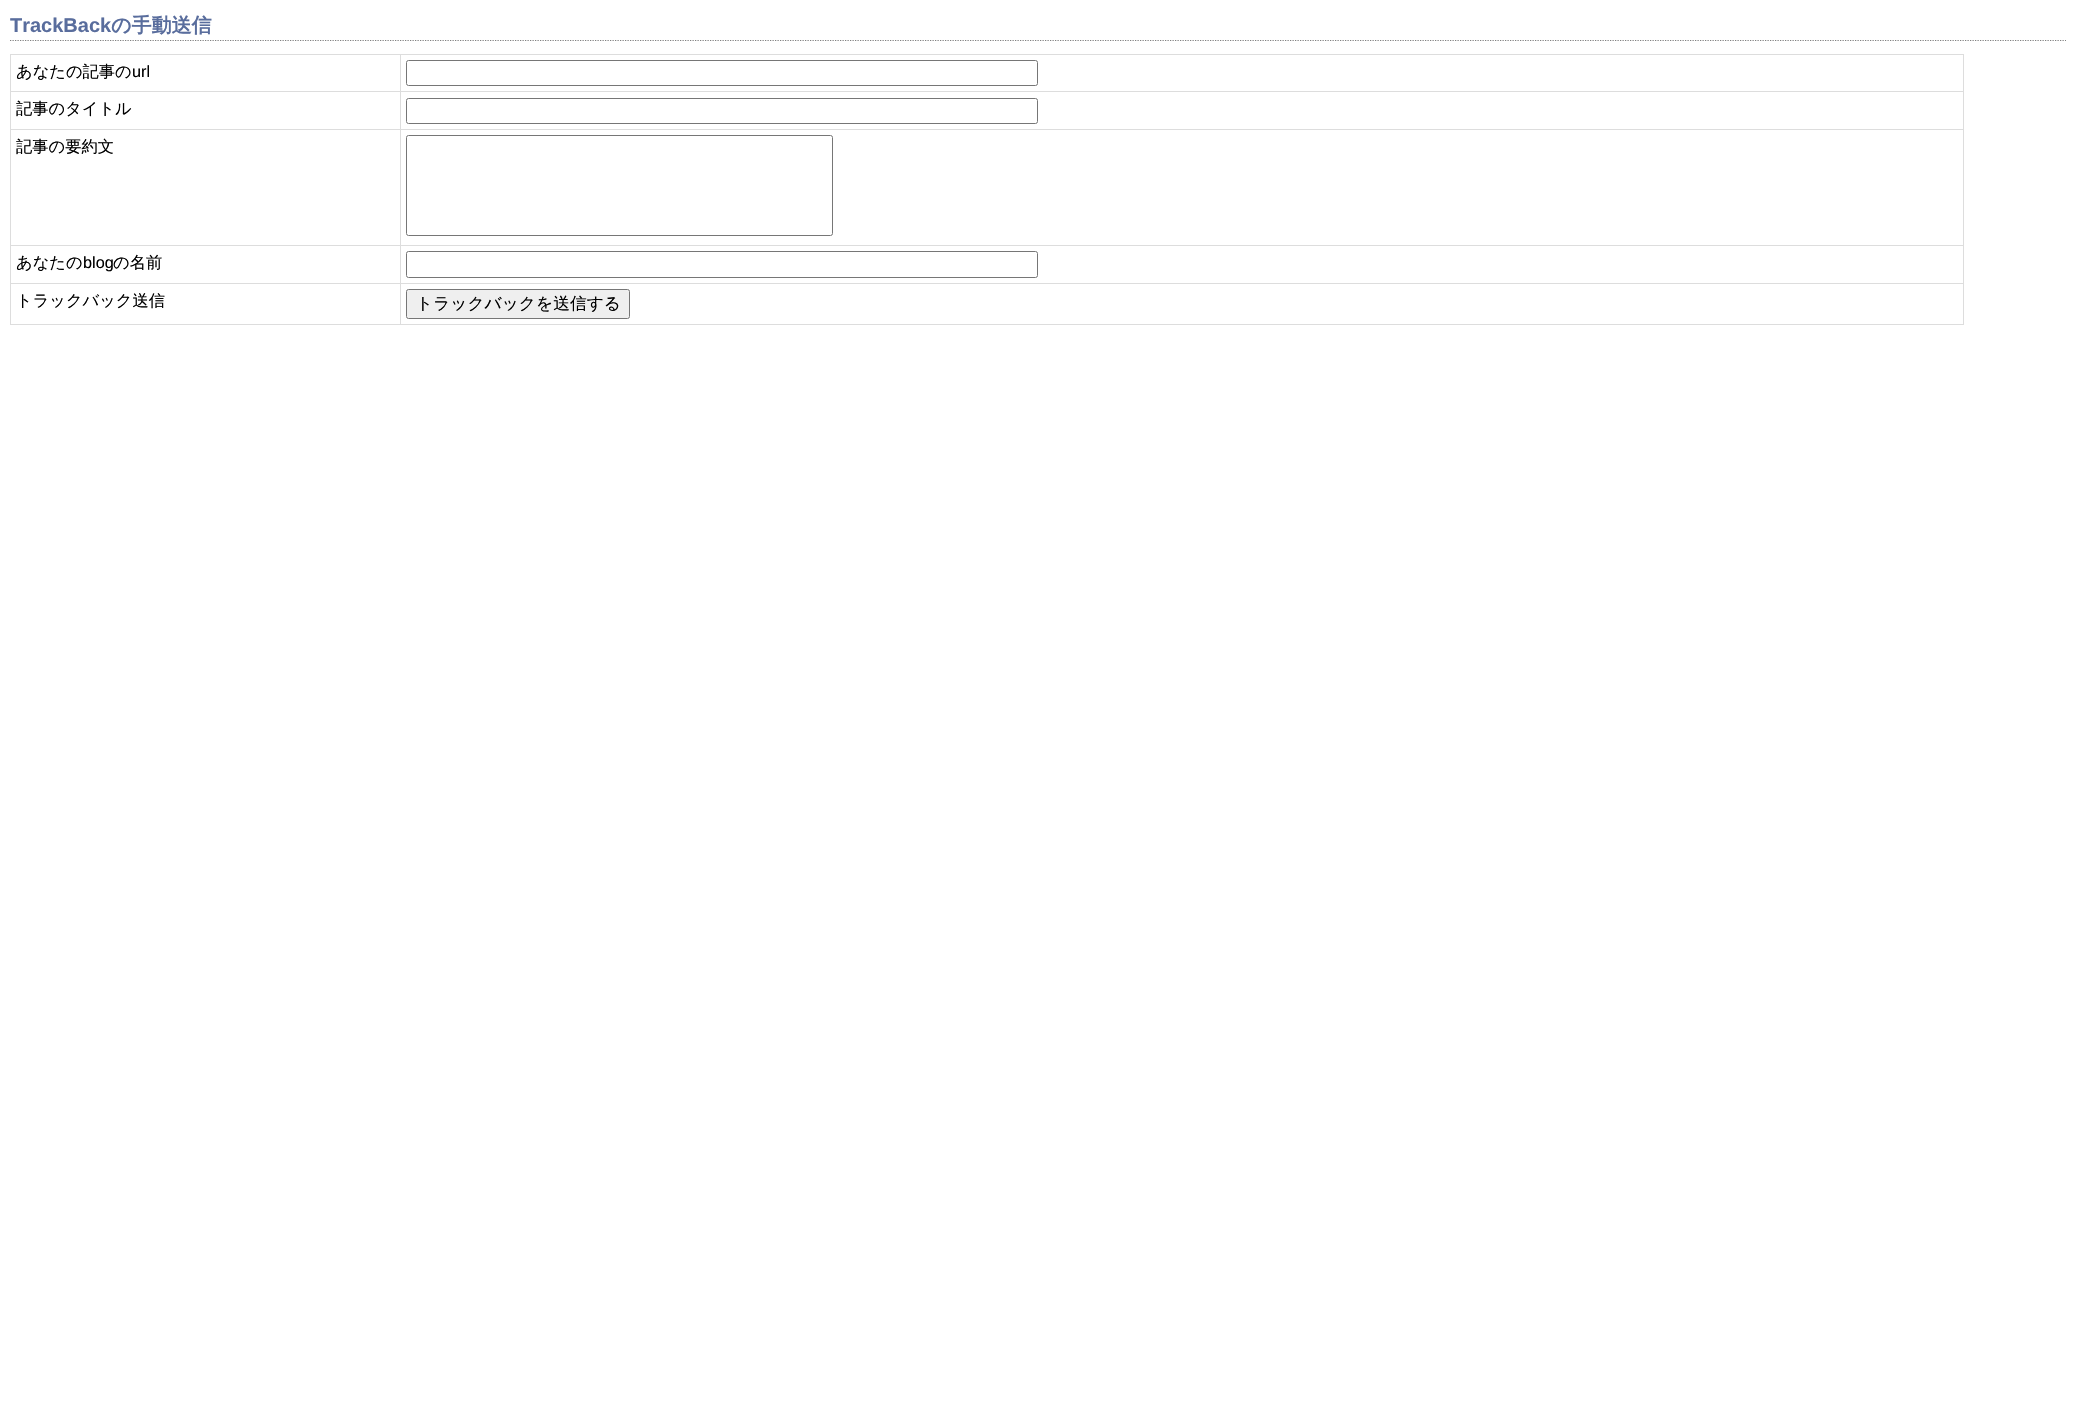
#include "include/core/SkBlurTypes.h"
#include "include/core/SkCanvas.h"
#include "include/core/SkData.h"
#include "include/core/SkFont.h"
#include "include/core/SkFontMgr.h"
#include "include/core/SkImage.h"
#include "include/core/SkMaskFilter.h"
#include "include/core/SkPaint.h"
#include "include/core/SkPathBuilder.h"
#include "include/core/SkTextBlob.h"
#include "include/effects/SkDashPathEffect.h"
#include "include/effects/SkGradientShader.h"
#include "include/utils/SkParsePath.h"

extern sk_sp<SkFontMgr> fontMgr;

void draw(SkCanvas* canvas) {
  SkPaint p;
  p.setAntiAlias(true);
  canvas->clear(SK_ColorWHITE);
  p.setStyle(SkPaint::kStroke_Style);
  p.setStrokeWidth(1.2f);
  p.setColor(SkColorSetRGB(128, 128, 128));
  p.setPathEffect(SkDashPathEffect::Make({{1.25f, 1.25f}}, 0));
  canvas->drawPath(SkPathBuilder().moveTo(10, 40.5f).lineTo(2066, 40.5f).detach(), p);
  p.setPathEffect(nullptr);
  p.setStyle(SkPaint::kFill_Style);
  p.setColor(SkColorSetRGB(221, 221, 221));
  canvas->drawRect(SkRect::MakeLTRB(400, 54, 1964, 55), p);
  canvas->drawRect(SkRect::MakeLTRB(400, 91, 1964, 92), p);
  canvas->drawRect(SkRect::MakeLTRB(400, 129, 1964, 130), p);
  canvas->drawRect(SkRect::MakeLTRB(400, 245, 1964, 246), p);
  canvas->drawRect(SkRect::MakeLTRB(400, 283, 1964, 284), p);
  canvas->drawRect(SkRect::MakeLTRB(1963, 283, 1964, 325), p);
  canvas->drawRect(SkRect::MakeLTRB(400, 324, 1964, 325), p);
  canvas->drawRect(SkRect::MakeLTRB(400, 283, 401, 325), p);
  canvas->drawRect(SkRect::MakeLTRB(10, 283, 401, 284), p);
  canvas->drawRect(SkRect::MakeLTRB(400, 245, 401, 284), p);
  canvas->drawRect(SkRect::MakeLTRB(10, 245, 401, 246), p);
  canvas->drawRect(SkRect::MakeLTRB(400, 129, 401, 246), p);
  canvas->drawRect(SkRect::MakeLTRB(10, 129, 401, 130), p);
  canvas->drawRect(SkRect::MakeLTRB(400, 91, 401, 130), p);
  canvas->drawRect(SkRect::MakeLTRB(10, 91, 401, 92), p);
  canvas->drawRect(SkRect::MakeLTRB(400, 54, 401, 93), p);
  canvas->drawRect(SkRect::MakeLTRB(10, 54, 401, 55), p);
  canvas->drawRect(SkRect::MakeLTRB(10, 324, 401, 325), p);
  canvas->drawRect(SkRect::MakeLTRB(10, 283, 11, 325), p);
  canvas->drawRect(SkRect::MakeLTRB(10, 245, 11, 284), p);
  canvas->drawRect(SkRect::MakeLTRB(10, 129, 11, 246), p);
  canvas->drawRect(SkRect::MakeLTRB(10, 91, 11, 130), p);
  canvas->drawRect(SkRect::MakeLTRB(10, 54, 11, 93), p);
  canvas->drawRect(SkRect::MakeLTRB(1963, 245, 1964, 284), p);
  canvas->drawRect(SkRect::MakeLTRB(1963, 129, 1964, 246), p);
  canvas->drawRect(SkRect::MakeLTRB(1963, 91, 1964, 130), p);
  canvas->drawRect(SkRect::MakeLTRB(1963, 54, 1964, 93), p);
  p.setStyle(SkPaint::kStroke_Style);
  p.setStrokeWidth(1);
  p.setColor(SkColorSetRGB(118, 118, 118));
  canvas->drawRoundRect(SkRect::MakeLTRB(406.5f, 60.5f, 1037.5f, 85.5f), 2, 2, p);
  canvas->drawRoundRect(SkRect::MakeLTRB(406.5f, 98.5f, 1037.5f, 123.5f), 2, 2, p);
  canvas->drawRoundRect(SkRect::MakeLTRB(406.5f, 135.5f, 832.5f, 235.5f), 2, 2, p);
  canvas->drawRoundRect(SkRect::MakeLTRB(406.5f, 251.5f, 1037.5f, 277.5f), 2, 2, p);
  p.setStyle(SkPaint::kFill_Style);
  p.setColor(SkColorSetRGB(239, 239, 239));
  canvas->drawRoundRect(SkRect::MakeLTRB(406.5f, 289.5f, 629.5f, 318.5f), 2, 2, p);
  p.setStyle(SkPaint::kStroke_Style);
  p.setColor(SkColorSetRGB(118, 118, 118));
  canvas->drawRoundRect(SkRect::MakeLTRB(406.5f, 289.5f, 629.5f, 318.5f), 2, 2, p);
  SkFont font1(fontMgr->matchFamilyStyle("Liberation Sans", SkFontStyle::Bold()), 20);
  font1.setSubpixel(true);
  p.setStyle(SkPaint::kFill_Style);
  p.setColor(SkColorSetRGB(89, 109, 157));
  canvas->drawString("TrackBack", 10, 32, font1, p);
  SkFont font2(fontMgr->matchFamilyStyle("WenQuanYi Zen Hei", SkFontStyle::Bold()), 20);
  font2.setSubpixel(true);
  canvas->drawString("の手動送信", 111, 32, font2, p);
  SkFont font3(fontMgr->matchFamilyStyle("WenQuanYi Zen Hei", SkFontStyle(500, SkFontStyle::kNormal_Width, SkFontStyle::kUpright_Slant)), 16.25f);
  font3.setSubpixel(true);
  p.setColor(SK_ColorBLACK);
  canvas->drawString("あなたの記事の", 16, 77, font3, p);
  SkFont font4(fontMgr->matchFamilyStyle("Liberation Sans", SkFontStyle::Normal()), 16.25f);
  font4.setSubpixel(true);
  canvas->drawString("url", 132, 77, font4, p);
  canvas->drawString("記事のタイトル", 16, 114, font3, p);
  canvas->drawString("記事の要約文", 16, 152, font3, p);
  canvas->drawString("あなたの", 16, 268, font3, p);
  canvas->drawString("blog", 83, 268, font4, p);
  canvas->drawString("の名前", 113, 268, font3, p);
  canvas->drawString("トラックバック送信", 16, 306, font3, p);
  SkFont font5(fontMgr->matchFamilyStyle("WenQuanYi Zen Hei", SkFontStyle(500, SkFontStyle::kNormal_Width, SkFontStyle::kUpright_Slant)), 16.75f);
  font5.setSubpixel(true);
  canvas->drawString("トラックバックを送信する", 416, 309, font5, p);
}
